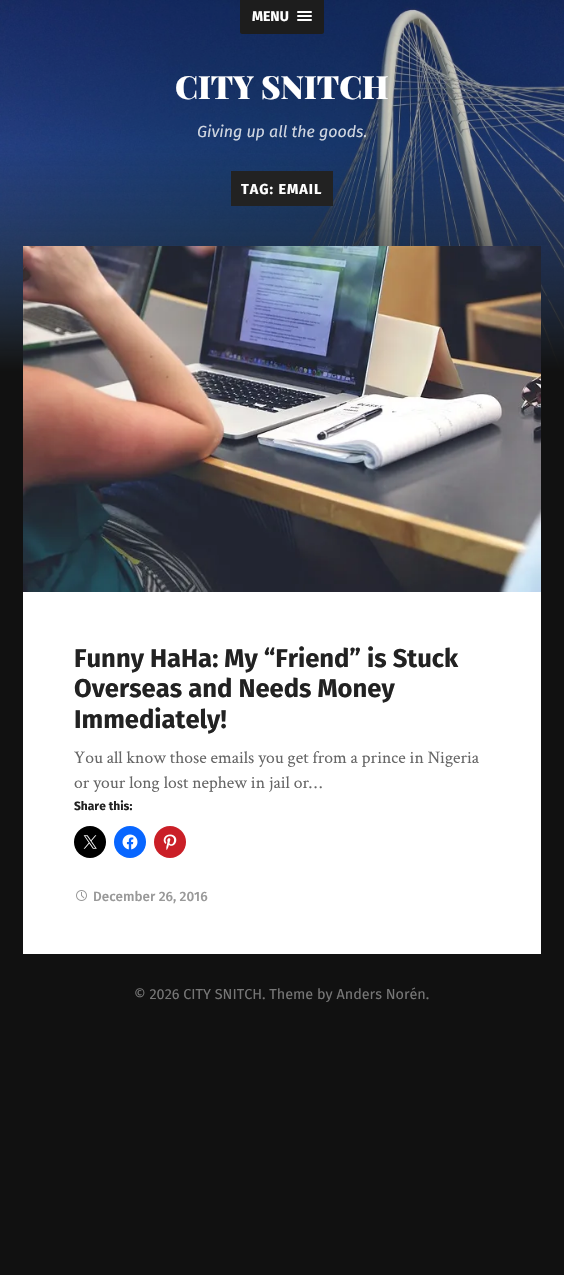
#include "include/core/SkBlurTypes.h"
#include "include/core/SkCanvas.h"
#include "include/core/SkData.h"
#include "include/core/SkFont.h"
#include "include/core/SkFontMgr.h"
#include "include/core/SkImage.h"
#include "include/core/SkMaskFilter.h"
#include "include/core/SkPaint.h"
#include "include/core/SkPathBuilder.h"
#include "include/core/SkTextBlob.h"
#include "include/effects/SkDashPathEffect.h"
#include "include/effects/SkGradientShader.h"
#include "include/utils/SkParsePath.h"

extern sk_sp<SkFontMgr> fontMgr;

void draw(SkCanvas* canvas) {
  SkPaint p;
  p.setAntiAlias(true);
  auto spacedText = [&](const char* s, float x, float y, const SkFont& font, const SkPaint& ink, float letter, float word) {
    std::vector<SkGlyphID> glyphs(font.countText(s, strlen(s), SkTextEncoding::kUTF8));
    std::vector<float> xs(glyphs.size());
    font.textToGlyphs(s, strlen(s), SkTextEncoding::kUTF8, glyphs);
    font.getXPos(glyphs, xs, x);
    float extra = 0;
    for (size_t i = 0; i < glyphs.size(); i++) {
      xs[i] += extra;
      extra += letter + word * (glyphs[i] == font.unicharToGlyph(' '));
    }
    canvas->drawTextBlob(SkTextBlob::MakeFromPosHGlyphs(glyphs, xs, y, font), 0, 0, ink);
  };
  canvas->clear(SkColorSetRGB(17, 17, 17));
  canvas->drawImageRect(SkImages::DeferredFromEncodedData(SkData::MakeFromFileName("images/1.png")), SkRect::MakeLTRB(0, 0, 564, 371), SkSamplingOptions());
  p.setColor(SkColorSetRGB(29, 29, 29));
  canvas->drawPath(SkPathBuilder().moveTo(240, 0).lineTo(324, 0).lineTo(324, 32).cubicTo(324, 33, 323, 34, 322, 34).lineTo(242, 34).cubicTo(241, 34, 240, 33, 240, 32).close().detach(), p);
  p.setColor(SK_ColorWHITE);
  canvas->drawRoundRect(SkRect::MakeLTRB(297, 11, 312, 13), 1, 1, p);
  canvas->drawRoundRect(SkRect::MakeLTRB(297, 15, 312, 17), 1, 1, p);
  canvas->drawRoundRect(SkRect::MakeLTRB(297, 19, 312, 21), 1, 1, p);
  p.setColor(SkColorSetRGB(34, 34, 34));
  canvas->drawRect(SkRect::MakeLTRB(231, 171, 333, 206), p);
  p.setColor(SK_ColorWHITE);
  canvas->drawRect(SkRect::MakeLTRB(23, 592, 541, 954), p);
  canvas->drawImageRect(SkImages::DeferredFromEncodedData(SkData::MakeFromFileName("images/2.png")), SkRect::MakeLTRB(23, 246, 541, 592), SkSamplingOptions());
  p.setColor(SK_ColorBLACK);
  canvas->drawCircle(90, 842, 16, p);
  canvas->drawImageRect(SkImages::DeferredFromEncodedData(SkData::MakeFromFileName("images/3.png")), SkRect::MakeLTRB(83, 835, 97, 849), SkSamplingOptions());
  p.setColor(SkColorSetRGB(8, 102, 255));
  canvas->drawCircle(130, 842, 16, p);
  canvas->drawImageRect(SkImages::DeferredFromEncodedData(SkData::MakeFromFileName("images/4.png")), SkRect::MakeLTRB(122, 834, 138, 850), SkSamplingOptions());
  p.setColor(SkColorSetRGB(202, 31, 39));
  canvas->drawCircle(170, 842, 16, p);
  canvas->drawImageRect(SkImages::DeferredFromEncodedData(SkData::MakeFromFileName("images/5.png")), SkRect::MakeLTRB(163, 834, 177, 850), SkSamplingOptions());
  canvas->drawImageRect(SkImages::DeferredFromEncodedData(SkData::MakeFromFileName("images/6.png")), SkRect::MakeLTRB(76, 890, 87, 901), SkSamplingOptions());
  SkFont font1(fontMgr->matchFamilyStyle("Fira Sans", SkFontStyle::Bold()), 14);
  font1.setSubpixel(true);
  p.setColor(SK_ColorWHITE);
  canvas->drawString("MENU", 252, 21, font1, p);
  SkFont font2(fontMgr->matchFamilyStyle("Playfair Display", SkFontStyle(900, SkFontStyle::kNormal_Width, SkFontStyle::kUpright_Slant)), 32);
  font2.setSubpixel(true);
  canvas->drawString("CITY SNITCH", 175, 99, font2, p);
  SkFont font3(fontMgr->matchFamilyStyle("Fira Sans", SkFontStyle::Italic()), 16);
  font3.setSubpixel(true);
  p.setColor(SkColorSetRGB(209, 215, 225));
  canvas->drawString("Giving up all the goods.", 197, 137, font3, p);
  SkFont font4(fontMgr->matchFamilyStyle("Fira Sans", SkFontStyle::Bold()), 14.4f);
  font4.setSubpixel(true);
  p.setColor(SK_ColorWHITE);
  spacedText("TAG: EMAIL", 241, 194, font4, p, 1, 0);
  SkFont font5(fontMgr->matchFamilyStyle("Fira Sans", SkFontStyle::Bold()), 25.6f);
  font5.setSubpixel(true);
  p.setColor(SkColorSetRGB(34, 34, 34));
  canvas->drawString("Funny HaHa: My “Friend” is Stuck", 74, 667, font5, p);
  canvas->drawString("Overseas and Needs Money", 74, 697, font5, p);
  canvas->drawString("Immediately!", 74, 728, font5, p);
  SkFont font6(fontMgr->matchFamilyStyle("Crimson Text", SkFontStyle::Normal()), 17.6f);
  font6.setSubpixel(true);
  p.setColor(SkColorSetRGB(102, 102, 102));
  canvas->drawString("You all know those emails you get from a prince in Nigeria", 74, 763, font6, p);
  canvas->drawString("or your long lost nephew in jail or…", 74, 788, font6, p);
  SkFont font7(fontMgr->matchFamilyStyle("Fira Sans", SkFontStyle::Bold()), 12);
  font7.setSubpixel(true);
  p.setColor(SkColorSetRGB(34, 34, 34));
  canvas->drawString("Share this:", 74, 810, font7, p);
  SkFont font8(fontMgr->matchFamilyStyle("Fira Sans", SkFontStyle(500, SkFontStyle::kNormal_Width, SkFontStyle::kUpright_Slant)), 13.5f);
  font8.setSubpixel(true);
  p.setColor(SkColorSetRGB(153, 153, 153));
  canvas->drawString("December 26, 2016", 93, 901, font8, p);
  SkFont font9(fontMgr->matchFamilyStyle("Fira Sans", SkFontStyle::Normal()), 14.4f);
  font9.setSubpixel(true);
  p.setColor(SkColorSetRGB(118, 118, 118));
  canvas->drawString("© 2026 CITY SNITCH. Theme by Anders Norén.", 134, 999, font9, p);
}
